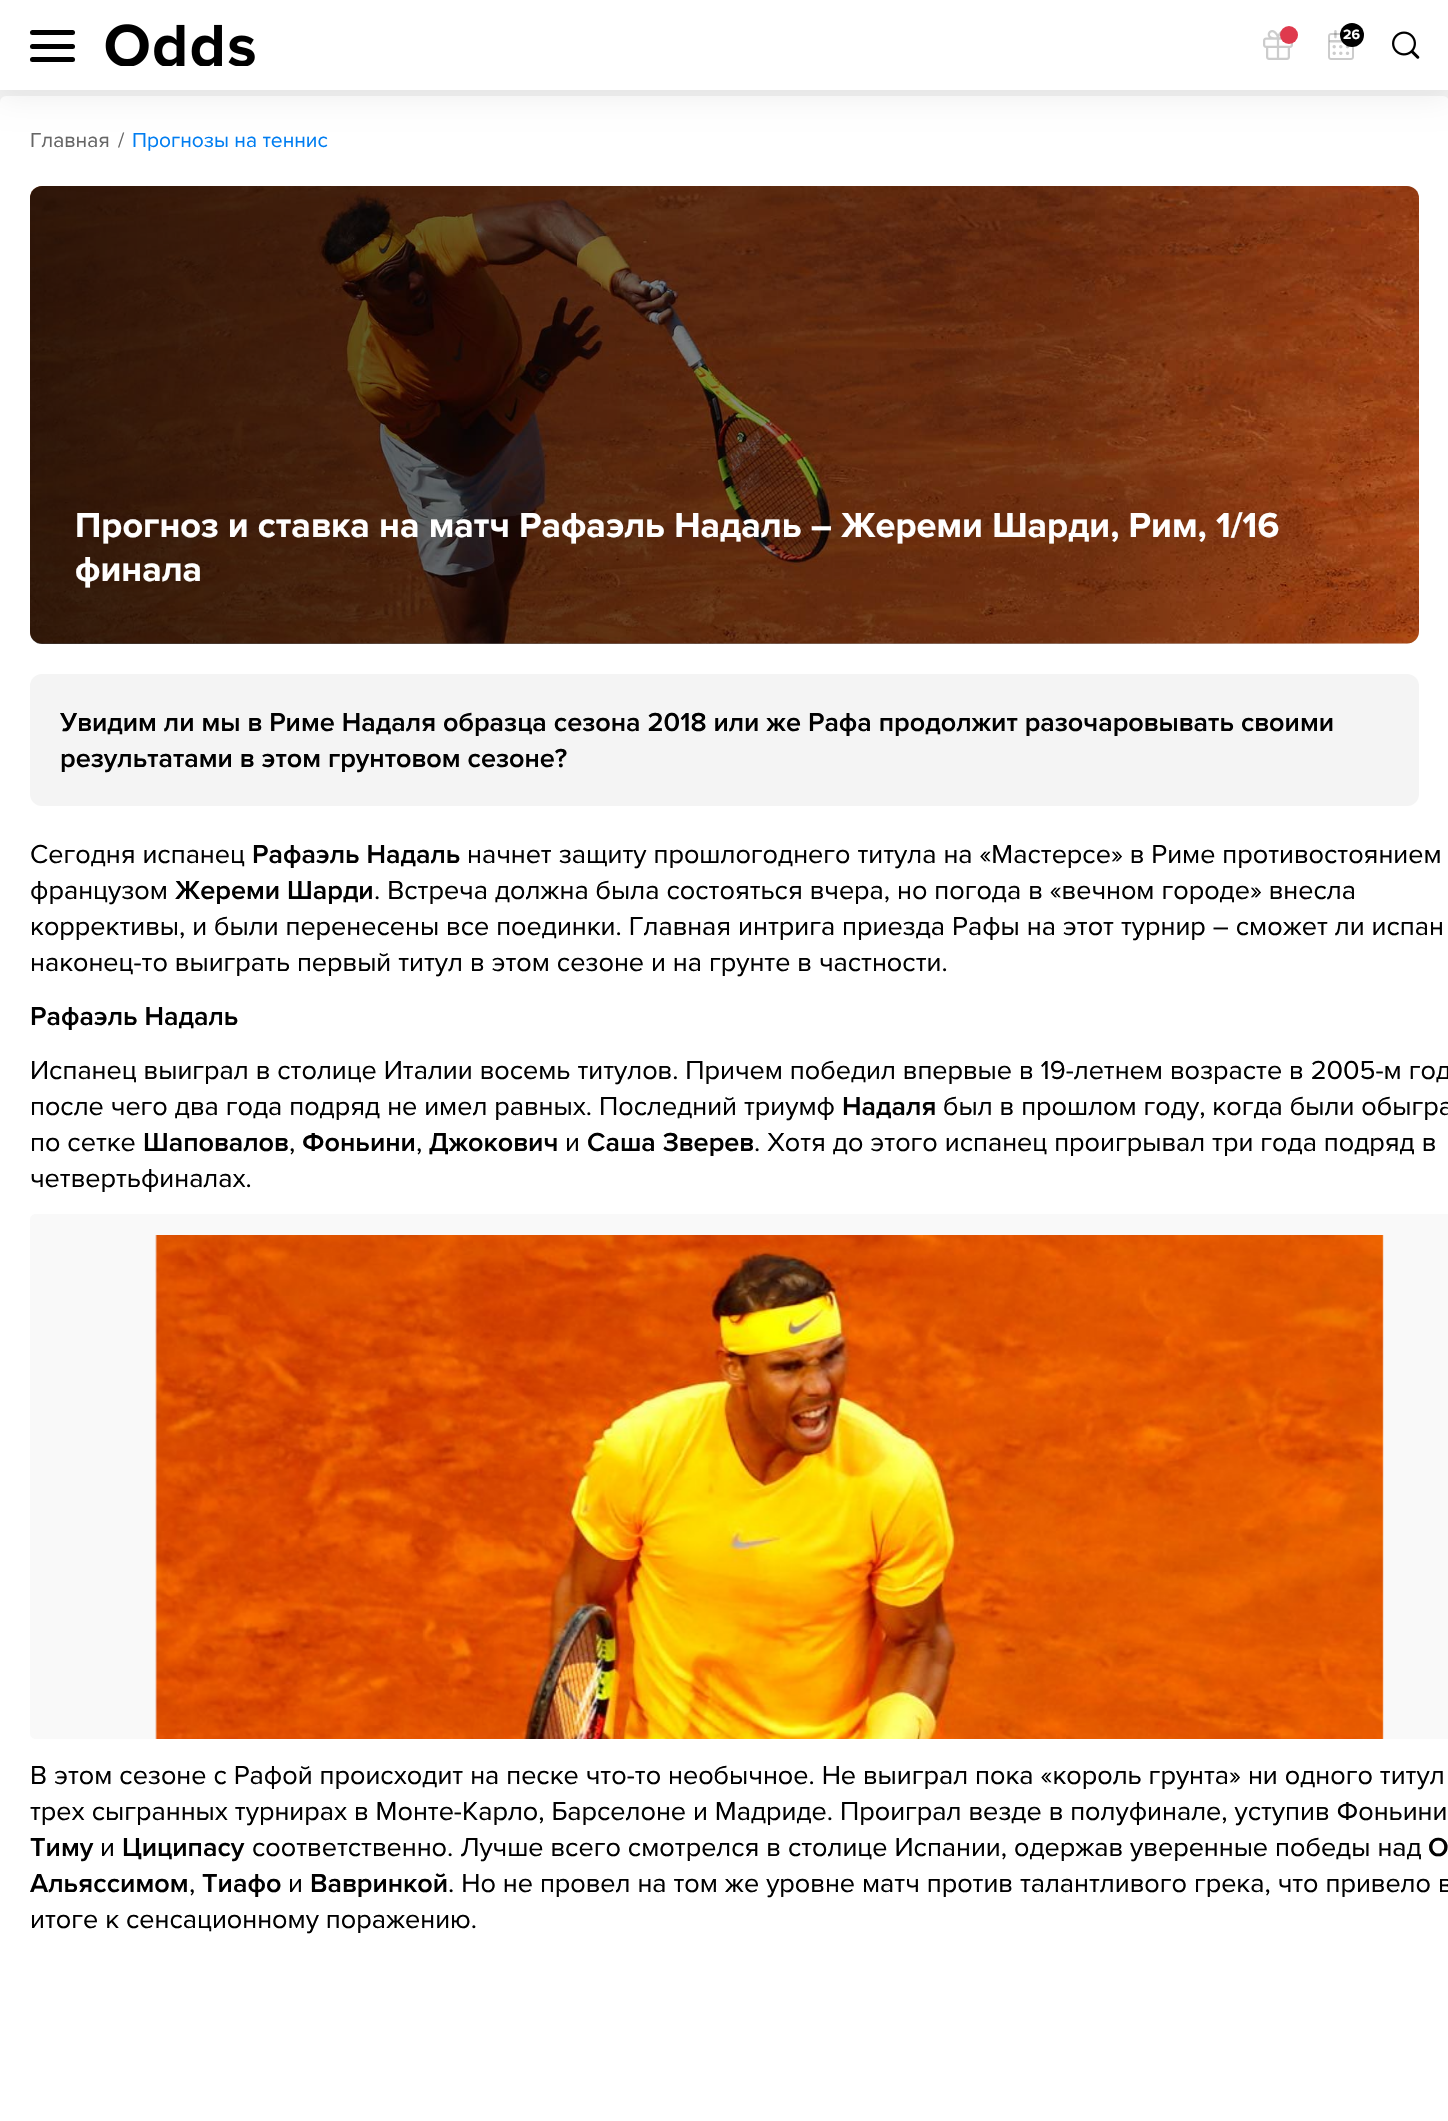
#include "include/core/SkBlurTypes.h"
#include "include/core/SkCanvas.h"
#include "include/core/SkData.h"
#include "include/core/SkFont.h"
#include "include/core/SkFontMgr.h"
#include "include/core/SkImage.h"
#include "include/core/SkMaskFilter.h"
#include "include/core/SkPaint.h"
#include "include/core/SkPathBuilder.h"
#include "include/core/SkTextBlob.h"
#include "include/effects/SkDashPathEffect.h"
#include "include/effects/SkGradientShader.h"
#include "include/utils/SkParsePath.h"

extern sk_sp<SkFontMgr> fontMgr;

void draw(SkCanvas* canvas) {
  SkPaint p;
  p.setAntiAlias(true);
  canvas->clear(SkColorSetRGB(243, 243, 243));
  p.setColor(SK_ColorWHITE);
  canvas->drawRoundRect(SkRect::MakeLTRB(0, 96, 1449, 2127), 6, 6, p);
  p.setColor(SkColorSetARGB(18, 0, 0, 0));
  p.setMaskFilter(SkMaskFilter::MakeBlur(kNormal_SkBlurStyle, 15));
  canvas->drawRect(SkRect::MakeLTRB(0, 6, 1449, 96), p);
  p.setMaskFilter(nullptr);
  p.setColor(SK_ColorWHITE);
  canvas->drawRect(SkRect::MakeLTRB(0, 0, 1448, 90), p);
  p.setColor(SK_ColorBLACK);
  canvas->drawRoundRect(SkRect::MakeLTRB(30, 30, 75, 35), 2.5f, 2.5f, p);
  canvas->drawRoundRect(SkRect::MakeLTRB(30, 44, 75, 49), 2.5f, 2.5f, p);
  canvas->drawRoundRect(SkRect::MakeLTRB(30, 57, 75, 62), 2.5f, 2.5f, p);
  canvas->drawImageRect(SkImages::DeferredFromEncodedData(SkData::MakeFromFileName("images/1.png")), SkRect::MakeLTRB(105, 24, 255, 66), SkSamplingOptions());
  canvas->drawImageRect(SkImages::DeferredFromEncodedData(SkData::MakeFromFileName("images/2.png")), SkRect::MakeLTRB(1263, 30, 1293, 60), SkSamplingOptions());
  p.setColor(SkColorSetRGB(223, 58, 77));
  canvas->drawCircle(1289, 35, 9, p);
  canvas->drawImageRect(SkImages::DeferredFromEncodedData(SkData::MakeFromFileName("images/3.png")), SkRect::MakeLTRB(1328, 30, 1354, 60), SkSamplingOptions());
  p.setColor(SK_ColorBLACK);
  canvas->drawCircle(1352, 35, 12, p);
  canvas->drawImageRect(SkImages::DeferredFromEncodedData(SkData::MakeFromFileName("images/4.png")), SkRect::MakeLTRB(1392, 31, 1420, 59), SkSamplingOptions());
  p.setColor(SkColorSetRGB(249, 249, 249));
  canvas->drawRoundRect(SkRect::MakeLTRB(30, 186, 1419, 644), 12, 12, p);
  canvas->drawImageRect(SkImages::DeferredFromEncodedData(SkData::MakeFromFileName("images/5.png")), SkRect::MakeLTRB(30, 186, 1419, 644), SkSamplingOptions());
  {
    const SkColor colors[] = {SkColorSetARGB(0, 0, 0, 0), SkColorSetARGB(89, 0, 0, 0), SkColorSetARGB(191, 0, 0, 0)};
    const float stops[] = {0, 0.25f, 1};
    const SkPoint ends[] = {{1419, 415}, {30, 415}};
    p.setShader(SkGradientShader::MakeLinear(ends, colors, stops, 3, SkTileMode::kClamp));
    p.setAlpha(255);
  }
  canvas->drawRoundRect(SkRect::MakeLTRB(30, 186, 1419, 644), 12, 12, p);
  p.setShader(nullptr);
  p.setColor(SkColorSetRGB(244, 244, 244));
  canvas->drawRoundRect(SkRect::MakeLTRB(30, 674, 1419, 806), 12, 12, p);
  p.setColor(SkColorSetRGB(249, 249, 249));
  canvas->drawPath(SkPathBuilder().moveTo(36, 1214).lineTo(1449, 1214).lineTo(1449, 1739).lineTo(36, 1739).cubicTo(32.5f, 1739, 30, 1736.5f, 30, 1733).lineTo(30, 1220).cubicTo(30, 1216.5f, 32.5f, 1214, 36, 1214).close().detach(), p);
  canvas->drawImageRect(SkImages::DeferredFromEncodedData(SkData::MakeFromFileName("images/6.png")), SkRect::MakeLTRB(155, 1235, 1384, 1739), SkSamplingOptions());
  SkFont font1(fontMgr->matchFamilyStyle("Proxima Nova", SkFontStyle::Bold()), 14);
  font1.setSubpixel(true);
  p.setColor(SK_ColorWHITE);
  canvas->drawString("26", 1343, 39, font1, p);
  SkFont font2(fontMgr->matchFamilyStyle("Proxima Nova", SkFontStyle::Normal()), 21);
  font2.setSubpixel(true);
  p.setColor(SkColorSetRGB(102, 102, 102));
  canvas->drawString("Главная", 30, 147, font2, p);
  canvas->drawString("/", 118, 147, font2, p);
  p.setColor(SkColorSetRGB(0, 125, 241));
  canvas->drawString("Прогнозы на теннис", 132, 147, font2, p);
  SkFont font3(fontMgr->matchFamilyStyle("Proxima Nova", SkFontStyle::Bold()), 36);
  font3.setSubpixel(true);
  p.setColor(SK_ColorWHITE);
  canvas->drawString("Прогноз и ставка на матч Рафаэль Надаль – Жереми Шарди, Рим, 1/16", 75, 537, font3, p);
  canvas->drawString("финала", 75, 581, font3, p);
  SkFont font4(fontMgr->matchFamilyStyle("Proxima Nova", SkFontStyle(600, SkFontStyle::kNormal_Width, SkFontStyle::kUpright_Slant)), 27);
  font4.setSubpixel(true);
  p.setColor(SK_ColorBLACK);
  canvas->drawString("Увидим ли мы в Риме Надаля образца сезона 2018 или же Рафа продолжит разочаровывать своими", 60, 731, font4, p);
  canvas->drawString("результатами в этом грунтовом сезоне?", 60, 767, font4, p);
  SkFont font5(fontMgr->matchFamilyStyle("Proxima Nova", SkFontStyle::Normal()), 27);
  font5.setSubpixel(true);
  canvas->drawString("Сегодня испанец", 30, 863, font5, p);
  canvas->drawString("Рафаэль Надаль", 252, 863, font4, p);
  canvas->drawString("начнет защиту прошлогоднего титула на «Мастерсе» в Риме противостоянием", 467, 863, font5, p);
  canvas->drawString("французом", 30, 899, font5, p);
  canvas->drawString("Жереми Шарди", 175, 899, font4, p);
  canvas->drawString(". Встреча должна была состояться вчера, но погода в «вечном городе» внесла", 374, 899, font5, p);
  canvas->drawString("коррективы, и были перенесены все поединки. Главная интрига приезда Рафы на этот турнир – сможет ли испан", 30, 935, font5, p);
  canvas->drawString("наконец-то выиграть первый титул в этом сезоне и на грунте в частности.", 30, 971, font5, p);
  canvas->drawString("Рафаэль Надаль", 30, 1025, font4, p);
  canvas->drawString("Испанец выиграл в столице Италии восемь титулов. Причем победил впервые в 19-летнем возрасте в 2005-м год", 30, 1079, font5, p);
  canvas->drawString("после чего два года подряд не имел равных. Последний триумф", 30, 1115, font5, p);
  canvas->drawString("Надаля", 842, 1115, font4, p);
  canvas->drawString("был в прошлом году, когда были обыгра", 943, 1115, font5, p);
  canvas->drawString("по сетке", 30, 1151, font5, p);
  canvas->drawString("Шаповалов", 143, 1151, font4, p);
  canvas->drawString(",", 289, 1151, font5, p);
  canvas->drawString("Фоньини", 302, 1151, font4, p);
  canvas->drawString(",", 416, 1151, font5, p);
  canvas->drawString("Джокович", 429, 1151, font4, p);
  canvas->drawString("и", 565, 1151, font5, p);
  canvas->drawString("Саша Зверев", 587, 1151, font4, p);
  canvas->drawString(". Хотя до этого испанец проигрывал три года подряд в", 754, 1151, font5, p);
  canvas->drawString("четвертьфиналах.", 30, 1187, font5, p);
  canvas->drawString("В этом сезоне с Рафой происходит на песке что-то необычное. Не выиграл пока «король грунта» ни одного титул", 30, 1784, font5, p);
  canvas->drawString("трех сыгранных турнирах в Монте-Карло, Барселоне и Мадриде. Проиграл везде в полуфинале, уступив Фоньини", 30, 1820, font5, p);
  canvas->drawString("Тиму", 30, 1856, font4, p);
  canvas->drawString("и", 100, 1856, font5, p);
  canvas->drawString("Циципасу", 122, 1856, font4, p);
  canvas->drawString("соответственно. Лучше всего смотрелся в столице Испании, одержав уверенные победы над", 252, 1856, font5, p);
  canvas->drawString("О", 1428, 1856, font4, p);
  canvas->drawString("Альяссимом", 30, 1892, font4, p);
  canvas->drawString(",", 189, 1892, font5, p);
  canvas->drawString("Тиафо", 202, 1892, font4, p);
  canvas->drawString("и", 288, 1892, font5, p);
  canvas->drawString("Вавринкой", 310, 1892, font4, p);
  canvas->drawString(". Но не провел на том же уровне матч против талантливого грека, что привело в", 448, 1892, font5, p);
  canvas->drawString("итоге к сенсационному поражению.", 30, 1928, font5, p);
}
